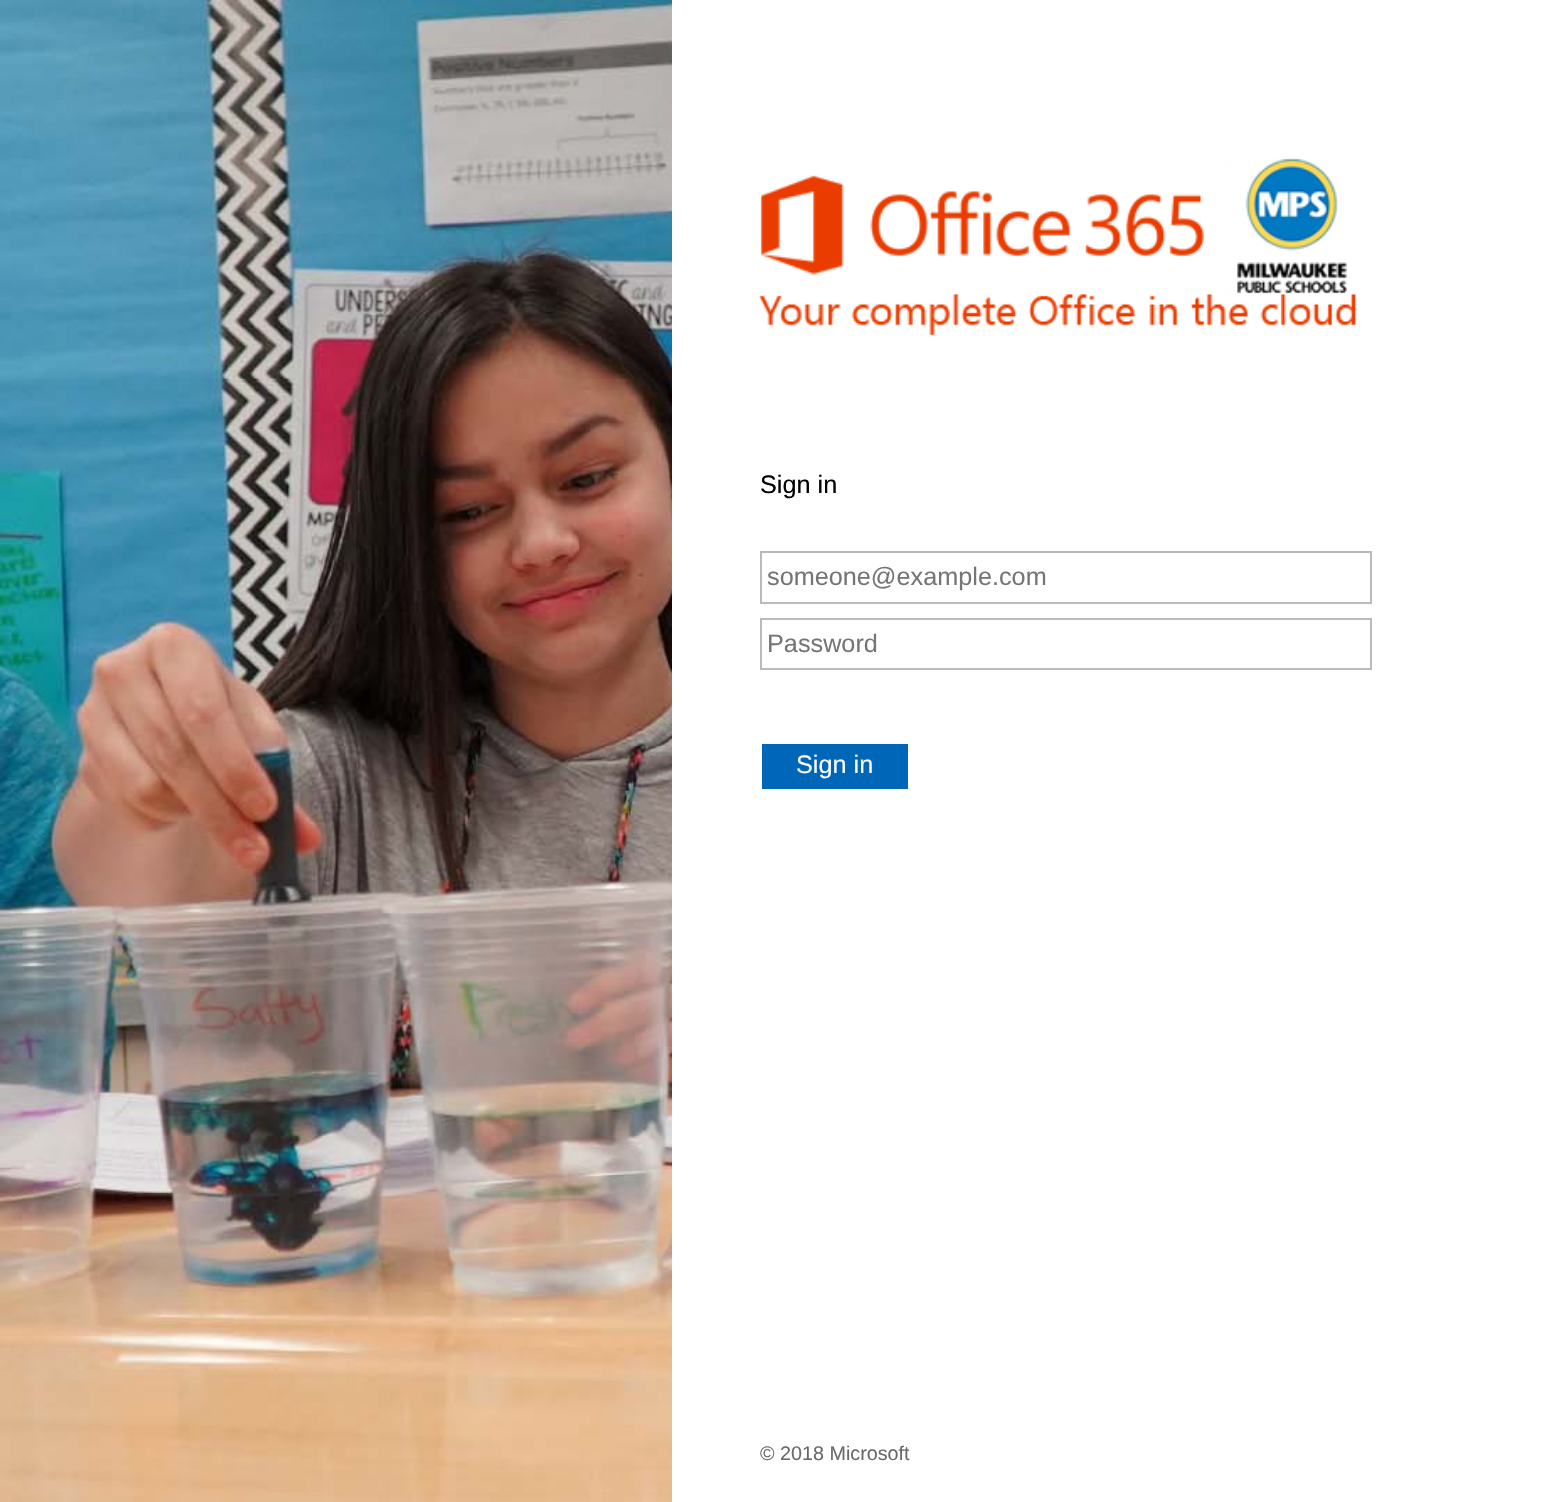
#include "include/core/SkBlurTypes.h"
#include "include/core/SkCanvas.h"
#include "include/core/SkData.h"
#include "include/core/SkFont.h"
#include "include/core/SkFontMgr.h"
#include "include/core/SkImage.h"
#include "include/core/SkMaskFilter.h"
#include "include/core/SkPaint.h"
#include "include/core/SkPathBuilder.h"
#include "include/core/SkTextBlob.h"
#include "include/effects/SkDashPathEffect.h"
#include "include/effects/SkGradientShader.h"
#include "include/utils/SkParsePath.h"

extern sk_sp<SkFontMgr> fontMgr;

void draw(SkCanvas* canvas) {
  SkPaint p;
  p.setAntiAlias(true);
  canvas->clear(SK_ColorWHITE);
  canvas->drawImageRect(SkImages::DeferredFromEncodedData(SkData::MakeFromFileName("images/1.png")), SkRect::MakeLTRB(0, 0, 672, 1502), SkSamplingOptions());
  canvas->drawImageRect(SkImages::DeferredFromEncodedData(SkData::MakeFromFileName("images/2.png")), SkRect::MakeLTRB(759, 158, 1357, 336), SkSamplingOptions());
  p.setStyle(SkPaint::kStroke_Style);
  p.setStrokeWidth(2);
  p.setColor(SkColorSetRGB(186, 186, 186));
  canvas->drawRect(SkRect::MakeLTRB(761, 552, 1371, 603), p);
  canvas->drawRect(SkRect::MakeLTRB(761, 619, 1371, 669), p);
  p.setStyle(SkPaint::kFill_Style);
  p.setColor(SkColorSetRGB(0, 103, 184));
  canvas->drawRect(SkRect::MakeLTRB(762, 744, 908, 789), p);
  SkFont font1(fontMgr->matchFamilyStyle("Liberation Sans", SkFontStyle::Normal()), 25.25f);
  font1.setSubpixel(true);
  p.setColor(SK_ColorBLACK);
  canvas->drawString("Sign in", 760, 493, font1, p);
  p.setColor(SkColorSetRGB(117, 117, 117));
  canvas->drawString("someone@example.com", 767, 585, font1, p);
  canvas->drawString("Password", 767, 652, font1, p);
  p.setColor(SK_ColorWHITE);
  canvas->drawString("Sign in", 796, 773, font1, p);
  SkFont font2(fontMgr->matchFamilyStyle("Liberation Sans", SkFontStyle::Normal()), 19.75f);
  font2.setSubpixel(true);
  p.setColor(SkColorSetRGB(105, 105, 105));
  canvas->drawString("© 2018 Microsoft", 760, 1460, font2, p);
}
